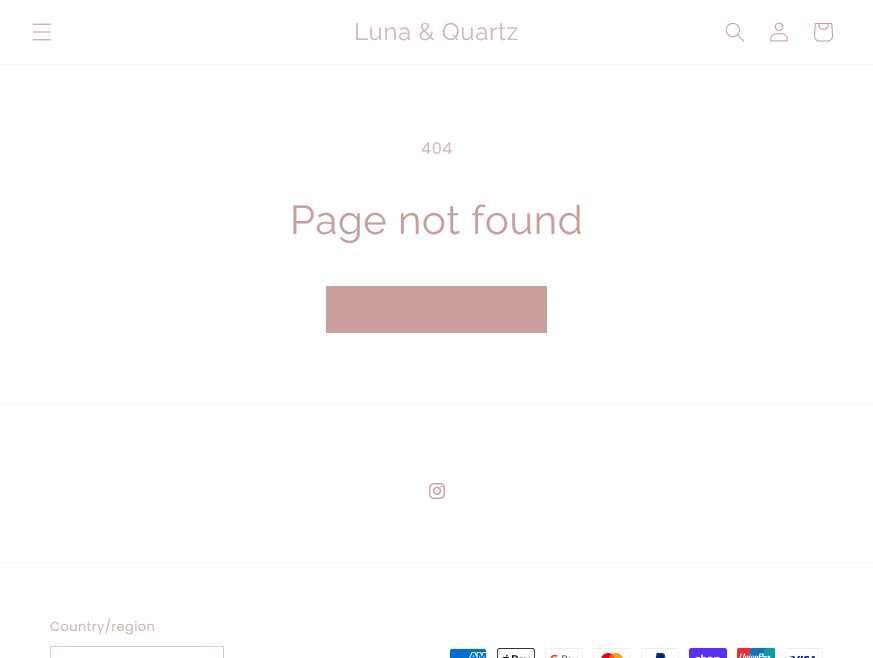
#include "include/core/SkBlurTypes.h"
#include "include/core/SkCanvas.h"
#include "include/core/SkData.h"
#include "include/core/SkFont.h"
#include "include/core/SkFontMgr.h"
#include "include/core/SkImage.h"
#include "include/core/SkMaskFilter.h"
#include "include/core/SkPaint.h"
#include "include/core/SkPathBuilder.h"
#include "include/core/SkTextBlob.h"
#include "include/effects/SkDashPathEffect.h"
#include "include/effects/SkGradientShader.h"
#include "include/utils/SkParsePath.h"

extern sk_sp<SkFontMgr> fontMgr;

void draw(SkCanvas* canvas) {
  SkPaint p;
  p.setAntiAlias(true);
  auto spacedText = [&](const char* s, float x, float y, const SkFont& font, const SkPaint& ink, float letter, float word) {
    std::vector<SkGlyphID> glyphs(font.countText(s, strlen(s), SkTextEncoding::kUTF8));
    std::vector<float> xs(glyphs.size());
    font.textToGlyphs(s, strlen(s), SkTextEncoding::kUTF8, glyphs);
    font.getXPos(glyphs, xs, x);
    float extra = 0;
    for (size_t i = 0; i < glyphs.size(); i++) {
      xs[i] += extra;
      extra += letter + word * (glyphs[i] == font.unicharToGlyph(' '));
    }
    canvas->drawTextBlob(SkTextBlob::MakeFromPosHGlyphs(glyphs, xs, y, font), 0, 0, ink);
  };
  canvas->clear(SK_ColorWHITE);
  p.setColor(SkColorSetRGB(251, 247, 247));
  canvas->drawRect(SkRect::MakeLTRB(0, 64, 873, 65), p);
  canvas->drawImageRect(SkImages::DeferredFromEncodedData(SkData::MakeFromFileName("images/1.png")), SkRect::MakeLTRB(32, 23, 51, 41), SkSamplingOptions());
  canvas->drawImageRect(SkImages::DeferredFromEncodedData(SkData::MakeFromFileName("images/2.png")), SkRect::MakeLTRB(725, 22, 744, 42), SkSamplingOptions());
  canvas->drawImageRect(SkImages::DeferredFromEncodedData(SkData::MakeFromFileName("images/3.png")), SkRect::MakeLTRB(770, 22, 788, 42), SkSamplingOptions());
  canvas->drawImageRect(SkImages::DeferredFromEncodedData(SkData::MakeFromFileName("images/4.png")), SkRect::MakeLTRB(814, 23, 834, 42), SkSamplingOptions());
  p.setColor(SkColorSetRGB(200, 159, 156));
  canvas->drawRect(SkRect::MakeLTRB(326, 286, 547, 333), p);
  p.setColor(SkColorSetRGB(251, 247, 247));
  canvas->drawRect(SkRect::MakeLTRB(0, 403, 873, 404), p);
  canvas->drawImageRect(SkImages::DeferredFromEncodedData(SkData::MakeFromFileName("images/5.png")), SkRect::MakeLTRB(429, 483, 445, 499), SkSamplingOptions());
  canvas->drawRect(SkRect::MakeLTRB(0, 562, 873, 563), p);
  p.setStyle(SkPaint::kStroke_Style);
  p.setStrokeWidth(1);
  p.setColor(SkColorSetRGB(225, 202, 201));
  canvas->drawRect(SkRect::MakeLTRB(50.5f, 646.5f, 223.5f, 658.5f), p);
  canvas->drawImageRect(SkImages::DeferredFromEncodedData(SkData::MakeFromFileName("images/6.png")), SkRect::MakeLTRB(449, 648, 487, 658), SkSamplingOptions());
  canvas->drawImageRect(SkImages::DeferredFromEncodedData(SkData::MakeFromFileName("images/7.png")), SkRect::MakeLTRB(497, 648, 535, 658), SkSamplingOptions());
  canvas->drawImageRect(SkImages::DeferredFromEncodedData(SkData::MakeFromFileName("images/8.png")), SkRect::MakeLTRB(545, 648, 583, 658), SkSamplingOptions());
  canvas->drawImageRect(SkImages::DeferredFromEncodedData(SkData::MakeFromFileName("images/9.png")), SkRect::MakeLTRB(593, 648, 631, 658), SkSamplingOptions());
  canvas->drawImageRect(SkImages::DeferredFromEncodedData(SkData::MakeFromFileName("images/10.png")), SkRect::MakeLTRB(641, 648, 679, 658), SkSamplingOptions());
  canvas->drawImageRect(SkImages::DeferredFromEncodedData(SkData::MakeFromFileName("images/11.png")), SkRect::MakeLTRB(689, 648, 727, 658), SkSamplingOptions());
  canvas->drawImageRect(SkImages::DeferredFromEncodedData(SkData::MakeFromFileName("images/12.png")), SkRect::MakeLTRB(737, 648, 775, 658), SkSamplingOptions());
  canvas->drawImageRect(SkImages::DeferredFromEncodedData(SkData::MakeFromFileName("images/13.png")), SkRect::MakeLTRB(785, 648, 823, 658), SkSamplingOptions());
  SkFont font1(fontMgr->matchFamilyStyle("Raleway", SkFontStyle::Normal()), 24);
  font1.setSubpixel(true);
  p.setStyle(SkPaint::kFill_Style);
  p.setColor(SkColorSetRGB(214, 183, 181));
  spacedText("Luna & Quartz", 354, 40, font1, p, 0.6f, 0);
  SkFont font2(fontMgr->matchFamilyStyle("Poppins", SkFontStyle::Normal()), 16);
  font2.setSubpixel(true);
  spacedText("404", 421, 154, font2, p, 0.6f, 0);
  SkFont font3(fontMgr->matchFamilyStyle("Raleway", SkFontStyle::Normal()), 40);
  font3.setSubpixel(true);
  p.setColor(SkColorSetRGB(200, 159, 156));
  spacedText("Page not found", 290, 234, font3, p, 0.6f, 0);
  SkFont font4(fontMgr->matchFamilyStyle("Poppins", SkFontStyle::Normal()), 13);
  font4.setSubpixel(true);
  p.setColor(SkColorSetRGB(214, 183, 181));
  spacedText("Country/region", 50, 631, font4, p, 0.4f, 0);
}
